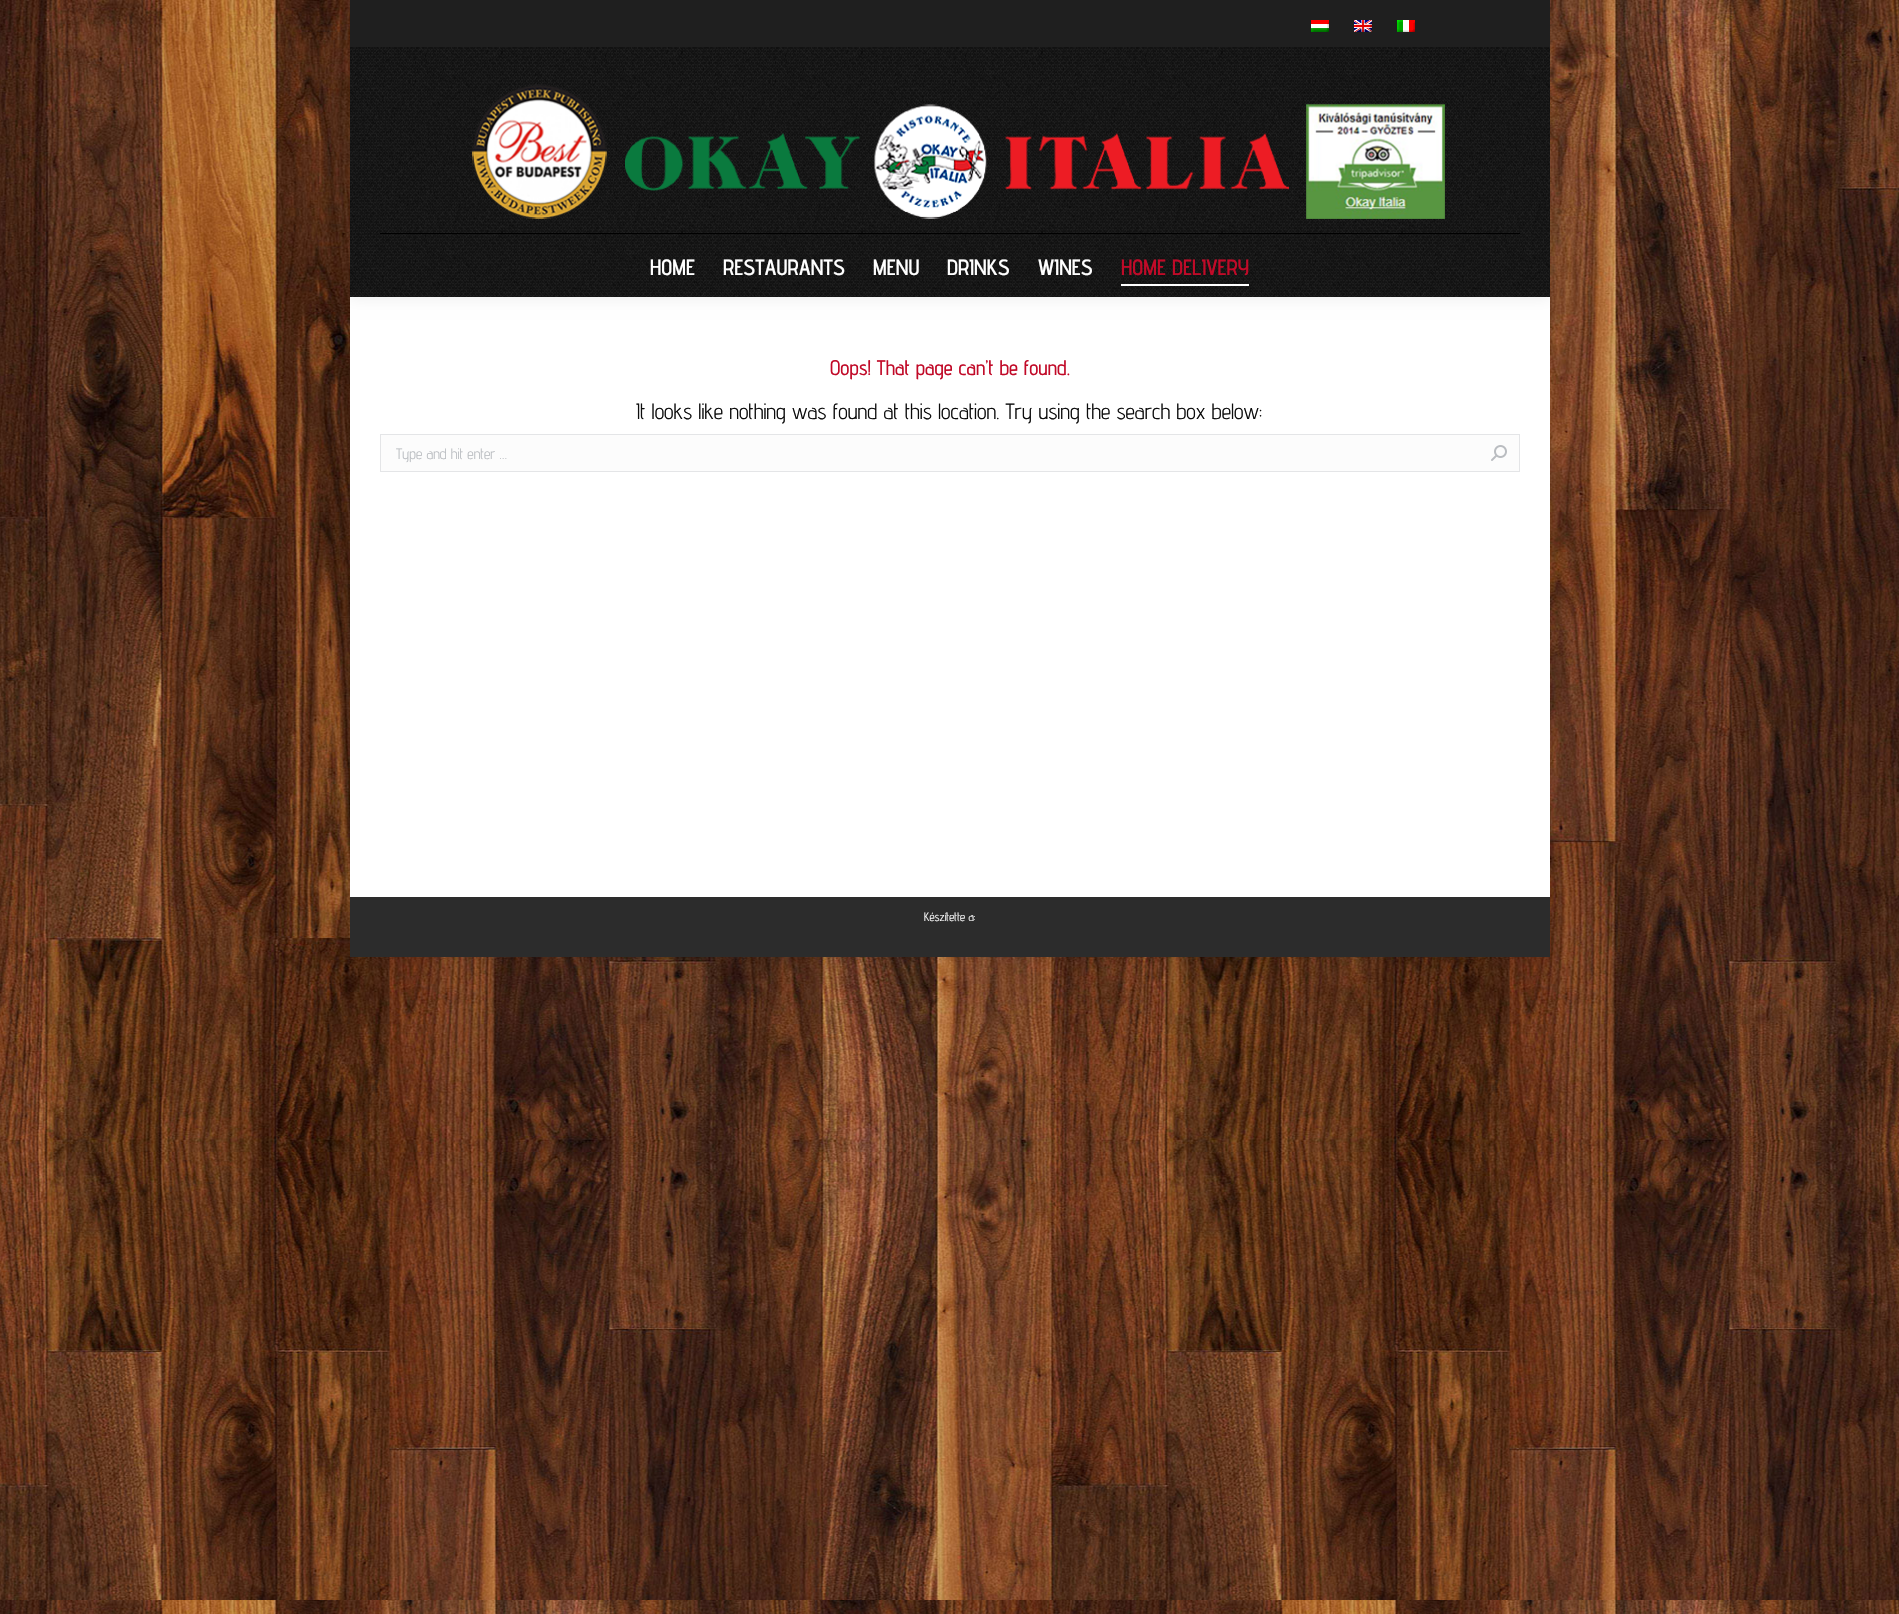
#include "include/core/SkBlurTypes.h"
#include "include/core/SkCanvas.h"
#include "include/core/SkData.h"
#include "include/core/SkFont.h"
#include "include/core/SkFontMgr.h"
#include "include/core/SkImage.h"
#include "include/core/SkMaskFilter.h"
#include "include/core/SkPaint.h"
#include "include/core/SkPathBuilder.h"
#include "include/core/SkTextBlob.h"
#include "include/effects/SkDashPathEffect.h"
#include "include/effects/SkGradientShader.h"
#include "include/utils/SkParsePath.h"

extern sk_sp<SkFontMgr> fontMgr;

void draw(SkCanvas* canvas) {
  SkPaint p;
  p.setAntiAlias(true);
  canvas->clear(SK_ColorWHITE);
  canvas->drawImageRect(SkImages::DeferredFromEncodedData(SkData::MakeFromFileName("images/1.png")), SkRect::MakeLTRB(0, 0, 1899, 1614), SkSamplingOptions());
  p.setColor(SkColorSetARGB(38, 0, 0, 0));
  p.setMaskFilter(SkMaskFilter::MakeBlur(kNormal_SkBlurStyle, 6));
  canvas->drawRect(SkRect::MakeLTRB(350, 0, 1550, 957), p);
  p.setMaskFilter(nullptr);
  p.setColor(SK_ColorWHITE);
  canvas->drawRect(SkRect::MakeLTRB(350, 297, 1550, 897), p);
  canvas->save();
  canvas->clipRect(SkRect::MakeLTRB(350, 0, 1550, 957));
  p.setColor(SkColorSetARGB(18, 0, 0, 0));
  p.setMaskFilter(SkMaskFilter::MakeBlur(kNormal_SkBlurStyle, 7.5f));
  canvas->drawRect(SkRect::MakeLTRB(349, -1, 1551, 298), p);
  p.setMaskFilter(nullptr);
  canvas->restore();
  canvas->drawImageRect(SkImages::DeferredFromEncodedData(SkData::MakeFromFileName("images/2.png")), SkRect::MakeLTRB(350, 47, 1550, 297), SkSamplingOptions());
  p.setColor(SkColorSetRGB(31, 31, 31));
  canvas->drawRect(SkRect::MakeLTRB(350, 0, 1550, 47), p);
  canvas->drawImageRect(SkImages::DeferredFromEncodedData(SkData::MakeFromFileName("images/3.png")), SkRect::MakeLTRB(1311, 20, 1329, 32), SkSamplingOptions());
  canvas->drawImageRect(SkImages::DeferredFromEncodedData(SkData::MakeFromFileName("images/4.png")), SkRect::MakeLTRB(1354, 20, 1372, 32), SkSamplingOptions());
  canvas->drawImageRect(SkImages::DeferredFromEncodedData(SkData::MakeFromFileName("images/5.png")), SkRect::MakeLTRB(1397, 20, 1415, 32), SkSamplingOptions());
  canvas->drawImageRect(SkImages::DeferredFromEncodedData(SkData::MakeFromFileName("images/6.png")), SkRect::MakeLTRB(472, 84, 1445, 219), SkSamplingOptions());
  p.setColor(SK_ColorBLACK);
  canvas->drawRect(SkRect::MakeLTRB(380, 233, 1520, 234), p);
  p.setColor(SK_ColorWHITE);
  canvas->drawRect(SkRect::MakeLTRB(1121, 284, 1249, 286), p);
  p.setColor(SkColorSetRGB(252, 252, 252));
  canvas->drawRect(SkRect::MakeLTRB(380.5f, 434.5f, 1519.5f, 471.5f), p);
  p.setStyle(SkPaint::kStroke_Style);
  p.setStrokeWidth(1);
  p.setColor(SkColorSetRGB(228, 229, 231));
  canvas->drawRect(SkRect::MakeLTRB(380.5f, 434.5f, 1519.5f, 471.5f), p);
  canvas->drawImageRect(SkImages::DeferredFromEncodedData(SkData::MakeFromFileName("images/7.png")), SkRect::MakeLTRB(1491, 445, 1507, 461), SkSamplingOptions());
  p.setStyle(SkPaint::kFill_Style);
  p.setColor(SkColorSetRGB(44, 44, 44));
  canvas->drawRect(SkRect::MakeLTRB(350, 897, 1550, 957), p);
  SkFont font1(fontMgr->matchFamilyStyle("Advent Pro", SkFontStyle(600, SkFontStyle::kNormal_Width, SkFontStyle::kUpright_Slant)), 22);
  font1.setSubpixel(true);
  p.setColor(SK_ColorWHITE);
  canvas->drawString("HOME", 650, 275, font1, p);
  canvas->drawString("RESTAURANTS", 723, 275, font1, p);
  canvas->drawString("MENU", 873, 275, font1, p);
  canvas->drawString("DRINKS", 947, 275, font1, p);
  canvas->drawString("WINES", 1038, 275, font1, p);
  p.setColor(SkColorSetRGB(193, 10, 40));
  canvas->drawString("HOME DELIVERY", 1121, 275, font1, p);
  SkFont font2(fontMgr->matchFamilyStyle("Advent Pro", SkFontStyle(500, SkFontStyle::kNormal_Width, SkFontStyle::kUpright_Slant)), 21);
  font2.setSubpixel(true);
  canvas->drawString("Oops! That page can’t be found.", 830, 375, font2, p);
  SkFont font3(fontMgr->matchFamilyStyle("Advent Pro", SkFontStyle::Normal()), 22);
  font3.setSubpixel(true);
  p.setColor(SkColorSetRGB(12, 12, 12));
  canvas->drawString("It looks like nothing was found at this location. Try using the search box below:", 636, 419, font3, p);
  SkFont font4(fontMgr->matchFamilyStyle("Advent Pro", SkFontStyle::Normal()), 15);
  font4.setSubpixel(true);
  p.setColor(SkColorSetRGB(186, 189, 193));
  canvas->drawString("Type and hit enter …", 396, 459, font4, p);
  SkFont font5(fontMgr->matchFamilyStyle("Advent Pro", SkFontStyle::Normal()), 12);
  font5.setSubpixel(true);
  p.setColor(SK_ColorWHITE);
  canvas->drawString("Készítette a:", 924, 921, font5, p);
}
